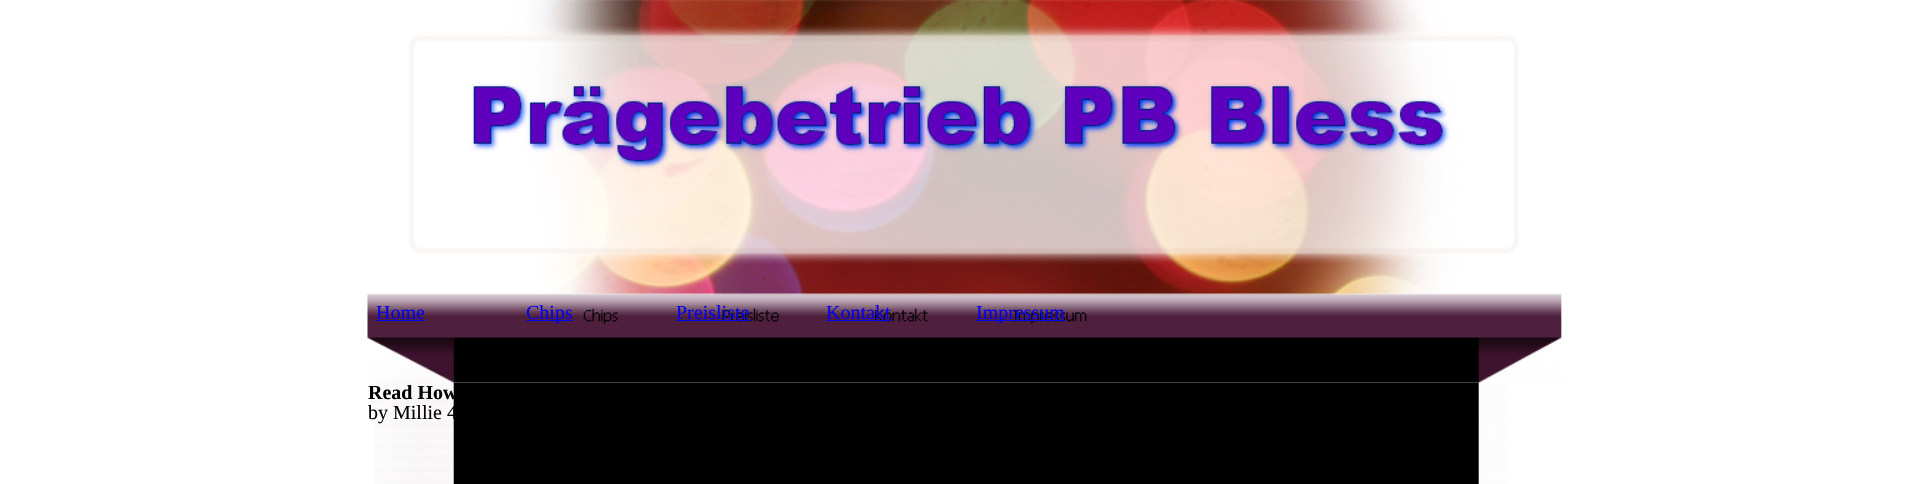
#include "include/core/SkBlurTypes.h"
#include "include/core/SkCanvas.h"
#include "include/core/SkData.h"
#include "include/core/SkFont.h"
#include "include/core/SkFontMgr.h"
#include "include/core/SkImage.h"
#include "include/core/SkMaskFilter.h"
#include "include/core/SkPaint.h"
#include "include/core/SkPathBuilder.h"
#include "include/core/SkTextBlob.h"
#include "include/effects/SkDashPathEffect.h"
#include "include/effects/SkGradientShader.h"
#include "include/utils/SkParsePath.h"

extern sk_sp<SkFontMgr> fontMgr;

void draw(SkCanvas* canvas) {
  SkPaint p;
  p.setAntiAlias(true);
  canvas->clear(SK_ColorWHITE);
  canvas->drawImageRect(SkImages::DeferredFromEncodedData(SkData::MakeFromFileName("images/1.png")), SkRect::MakeLTRB(409, 0, 1519, 294), SkSamplingOptions());
  SkFont font1(fontMgr->matchFamilyStyle("Liberation Serif", SkFontStyle::Bold()), 20);
  font1.setSubpixel(true);
  p.setColor(SK_ColorBLACK);
  canvas->drawString("Read How", 368, 399, font1, p);
  SkFont font2(fontMgr->matchFamilyStyle("Liberation Serif", SkFontStyle::Normal()), 20);
  font2.setSubpixel(true);
  canvas->drawString("by Millie 4", 368, 419, font2, p);
  canvas->drawImageRect(SkImages::DeferredFromEncodedData(SkData::MakeFromFileName("images/7.png")), SkRect::MakeLTRB(373, 382, 1505, 484), SkSamplingOptions());
  canvas->drawImageRect(SkImages::DeferredFromEncodedData(SkData::MakeFromFileName("images/2.png")), SkRect::MakeLTRB(367, 293, 1562, 383), SkSamplingOptions());
  canvas->drawImageRect(SkImages::DeferredFromEncodedData(SkData::MakeFromFileName("images/6.png")), SkRect::MakeLTRB(1013, 309, 1087, 324), SkSamplingOptions());
  p.setColor(SkColorSetRGB(0, 0, 238));
  canvas->drawRect(SkRect::MakeLTRB(976, 320, 1065, 321), p);
  canvas->drawString("Impressum", 976, 319, font2, p);
  canvas->drawImageRect(SkImages::DeferredFromEncodedData(SkData::MakeFromFileName("images/5.png")), SkRect::MakeLTRB(874, 308, 928, 322), SkSamplingOptions());
  canvas->drawString("Kontakt", 826, 319, font2, p);
  canvas->drawRect(SkRect::MakeLTRB(826, 320, 891, 321), p);
  canvas->drawImageRect(SkImages::DeferredFromEncodedData(SkData::MakeFromFileName("images/4.png")), SkRect::MakeLTRB(722, 308, 779, 322), SkSamplingOptions());
  canvas->drawString("Preisliste", 676, 319, font2, p);
  canvas->drawRect(SkRect::MakeLTRB(676, 320, 750, 321), p);
  canvas->drawRect(SkRect::MakeLTRB(526, 320, 573, 321), p);
  canvas->drawString("Chips", 526, 319, font2, p);
  canvas->drawImageRect(SkImages::DeferredFromEncodedData(SkData::MakeFromFileName("images/3.png")), SkRect::MakeLTRB(583, 308, 618, 324), SkSamplingOptions());
  canvas->drawString("Home", 376, 319, font2, p);
  canvas->drawRect(SkRect::MakeLTRB(376, 320, 425, 321), p);
}
